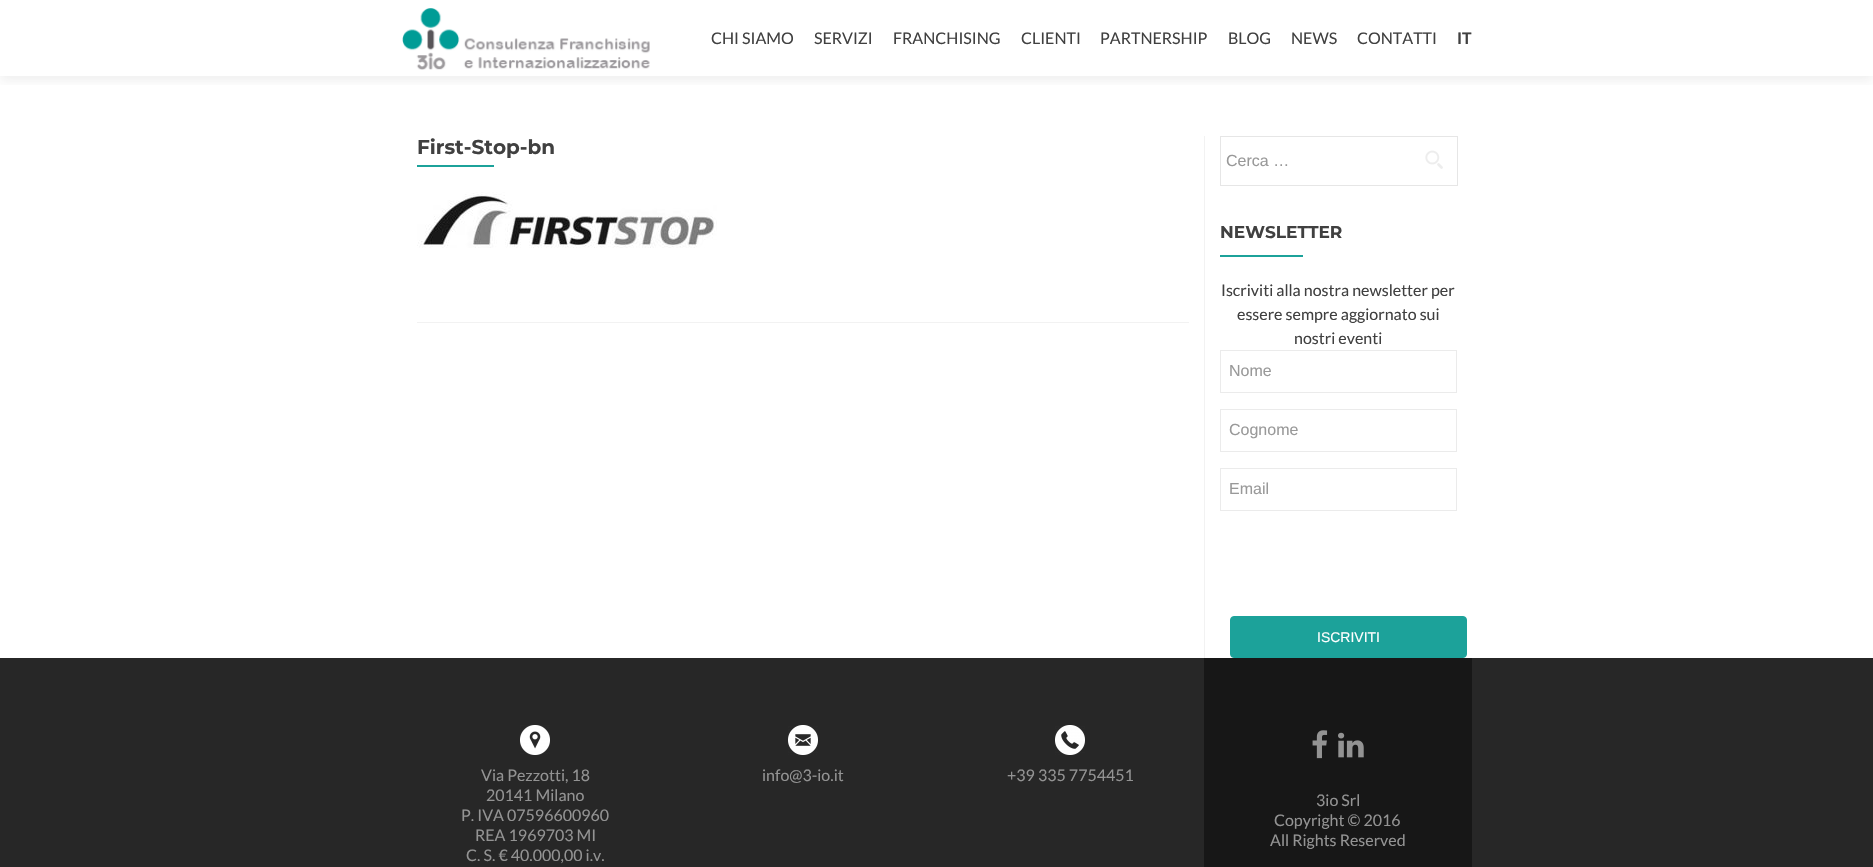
#include "include/core/SkBlurTypes.h"
#include "include/core/SkCanvas.h"
#include "include/core/SkData.h"
#include "include/core/SkFont.h"
#include "include/core/SkFontMgr.h"
#include "include/core/SkImage.h"
#include "include/core/SkMaskFilter.h"
#include "include/core/SkPaint.h"
#include "include/core/SkPathBuilder.h"
#include "include/core/SkTextBlob.h"
#include "include/effects/SkDashPathEffect.h"
#include "include/effects/SkGradientShader.h"
#include "include/utils/SkParsePath.h"

extern sk_sp<SkFontMgr> fontMgr;

void draw(SkCanvas* canvas) {
  SkPaint p;
  p.setAntiAlias(true);
  canvas->clear(SK_ColorWHITE);
  canvas->save();
  canvas->clipRect(SkRect::MakeLTRB(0, 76, 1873, 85));
  p.setColor(SkColorSetARGB(20, 50, 50, 50));
  p.setMaskFilter(SkMaskFilter::MakeBlur(kNormal_SkBlurStyle, 5.5f));
  canvas->drawRect(SkRect::MakeLTRB(0, 5, 1873, 81), p);
  p.setMaskFilter(nullptr);
  canvas->restore();
  canvas->drawImageRect(SkImages::DeferredFromEncodedData(SkData::MakeFromFileName("images/1.png")), SkRect::MakeLTRB(402, 8, 650, 70), SkSamplingOptions());
  p.setColor(SkColorSetRGB(242, 242, 242));
  canvas->drawRect(SkRect::MakeLTRB(417, 322, 1189, 323), p);
  p.setColor(SkColorSetRGB(28, 162, 154));
  canvas->drawRect(SkRect::MakeLTRB(417, 165, 494, 167), p);
  canvas->drawImageRect(SkImages::DeferredFromEncodedData(SkData::MakeFromFileName("images/2.png")), SkRect::MakeLTRB(417, 192, 717, 248), SkSamplingOptions());
  p.setColor(SkColorSetRGB(242, 242, 242));
  canvas->drawRect(SkRect::MakeLTRB(1204, 136, 1205, 658), p);
  p.setStyle(SkPaint::kStroke_Style);
  p.setStrokeWidth(1);
  p.setColor(SkColorSetRGB(230, 230, 230));
  canvas->drawRect(SkRect::MakeLTRB(1220.5f, 136.5f, 1457.5f, 185.5f), p);
  canvas->drawImageRect(SkImages::DeferredFromEncodedData(SkData::MakeFromFileName("images/3.png")), SkRect::MakeLTRB(1425, 150, 1443, 169), SkSamplingOptions());
  p.setStyle(SkPaint::kFill_Style);
  p.setColor(SkColorSetRGB(28, 162, 154));
  canvas->drawRect(SkRect::MakeLTRB(1220, 255, 1303, 257), p);
  p.setStyle(SkPaint::kStroke_Style);
  p.setColor(SkColorSetRGB(235, 235, 235));
  canvas->drawRect(SkRect::MakeLTRB(1220.5f, 350.5f, 1456.5f, 392.5f), p);
  canvas->drawRect(SkRect::MakeLTRB(1220.5f, 409.5f, 1456.5f, 451.5f), p);
  canvas->drawRect(SkRect::MakeLTRB(1220.5f, 468.5f, 1456.5f, 510.5f), p);
  p.setStyle(SkPaint::kFill_Style);
  p.setColor(SkColorSetRGB(28, 162, 154));
  canvas->drawRoundRect(SkRect::MakeLTRB(1230.5f, 616.5f, 1466.5f, 657.5f), 3.5f, 3.5f, p);
  p.setStyle(SkPaint::kStroke_Style);
  canvas->drawRoundRect(SkRect::MakeLTRB(1230.5f, 616.5f, 1466.5f, 657.5f), 3.5f, 3.5f, p);
  p.setStyle(SkPaint::kFill_Style);
  p.setColor(SkColorSetRGB(39, 39, 39));
  canvas->drawRect(SkRect::MakeLTRB(0, 658, 1873, 867), p);
  canvas->drawImageRect(SkImages::DeferredFromEncodedData(SkData::MakeFromFileName("images/4.png")), SkRect::MakeLTRB(520, 725, 550, 755), SkSamplingOptions());
  canvas->drawImageRect(SkImages::DeferredFromEncodedData(SkData::MakeFromFileName("images/5.png")), SkRect::MakeLTRB(788, 725, 818, 755), SkSamplingOptions());
  canvas->drawImageRect(SkImages::DeferredFromEncodedData(SkData::MakeFromFileName("images/6.png")), SkRect::MakeLTRB(1055, 725, 1085, 755), SkSamplingOptions());
  p.setColor(SkColorSetRGB(23, 23, 23));
  canvas->drawRect(SkRect::MakeLTRB(1204, 658, 1472, 867), p);
  canvas->drawImageRect(SkImages::DeferredFromEncodedData(SkData::MakeFromFileName("images/7.png")), SkRect::MakeLTRB(1312, 730, 1328, 759), SkSamplingOptions());
  canvas->drawImageRect(SkImages::DeferredFromEncodedData(SkData::MakeFromFileName("images/8.png")), SkRect::MakeLTRB(1338, 732, 1364, 758), SkSamplingOptions());
  SkFont font1(fontMgr->matchFamilyStyle("Lato", SkFontStyle::Normal()), 16);
  font1.setSubpixel(true);
  p.setColor(SkColorSetRGB(64, 64, 64));
  canvas->drawString("CHI SIAMO", 711, 44, font1, p);
  canvas->drawString("SERVIZI", 814, 44, font1, p);
  canvas->drawString("FRANCHISING", 893, 44, font1, p);
  canvas->drawString("CLIENTI", 1021, 44, font1, p);
  canvas->drawString("PARTNERSHIP", 1100, 44, font1, p);
  canvas->drawString("BLOG", 1228, 44, font1, p);
  canvas->drawString("NEWS", 1291, 44, font1, p);
  canvas->drawString("CONTATTI", 1357, 44, font1, p);
  SkFont font2(fontMgr->matchFamilyStyle("Lato", SkFontStyle::Bold()), 16);
  font2.setSubpixel(true);
  canvas->drawString("IT", 1457, 44, font2, p);
  SkFont font3(fontMgr->matchFamilyStyle("Montserrat", SkFontStyle(100, SkFontStyle::kNormal_Width, SkFontStyle::kUpright_Slant)), 20);
  font3.setSubpixel(true);
  canvas->drawString("First-Stop-bn", 417, 154, font3, p);
  SkFont font4(fontMgr->matchFamilyStyle("Liberation Sans", SkFontStyle::Normal()), 16);
  font4.setSubpixel(true);
  p.setColor(SkColorSetRGB(153, 153, 153));
  canvas->drawString("Cerca …", 1226, 166, font4, p);
  SkFont font5(fontMgr->matchFamilyStyle("Montserrat", SkFontStyle(100, SkFontStyle::kNormal_Width, SkFontStyle::kUpright_Slant)), 17);
  font5.setSubpixel(true);
  p.setColor(SkColorSetRGB(64, 64, 64));
  canvas->drawString("NEWSLETTER", 1220, 238, font5, p);
  canvas->drawString("Iscriviti alla nostra newsletter per", 1221, 296, font1, p);
  canvas->drawString("essere sempre aggiornato sui", 1237, 320, font1, p);
  canvas->drawString("nostri eventi", 1294, 344, font1, p);
  p.setColor(SkColorSetRGB(153, 153, 153));
  canvas->drawString("Nome", 1229, 376, font4, p);
  canvas->drawString("Cognome", 1229, 435, font4, p);
  canvas->drawString("Email", 1229, 494, font4, p);
  SkFont font6(fontMgr->matchFamilyStyle("Liberation Sans", SkFontStyle::Normal()), 14);
  font6.setSubpixel(true);
  p.setColor(SK_ColorWHITE);
  canvas->drawString("ISCRIVITI", 1317, 642, font6, p);
  p.setColor(SkColorSetRGB(147, 147, 147));
  canvas->drawString("Via Pezzotti, 18", 481, 781, font1, p);
  canvas->drawString("20141 Milano", 486, 801, font1, p);
  canvas->drawString("P. IVA 07596600960", 461, 821, font1, p);
  canvas->drawString("REA 1969703 MI", 475, 841, font1, p);
  canvas->drawString("C. S. € 40.000,00 i.v.", 466, 861, font1, p);
  canvas->drawString("info@3-io.it", 762, 781, font1, p);
  canvas->drawString("+39 335 7754451", 1007, 781, font1, p);
  canvas->drawString("3io Srl", 1316, 806, font1, p);
  canvas->drawString("Copyright © 2016", 1274, 826, font1, p);
  canvas->drawString("All Rights Reserved", 1270, 846, font1, p);
}
